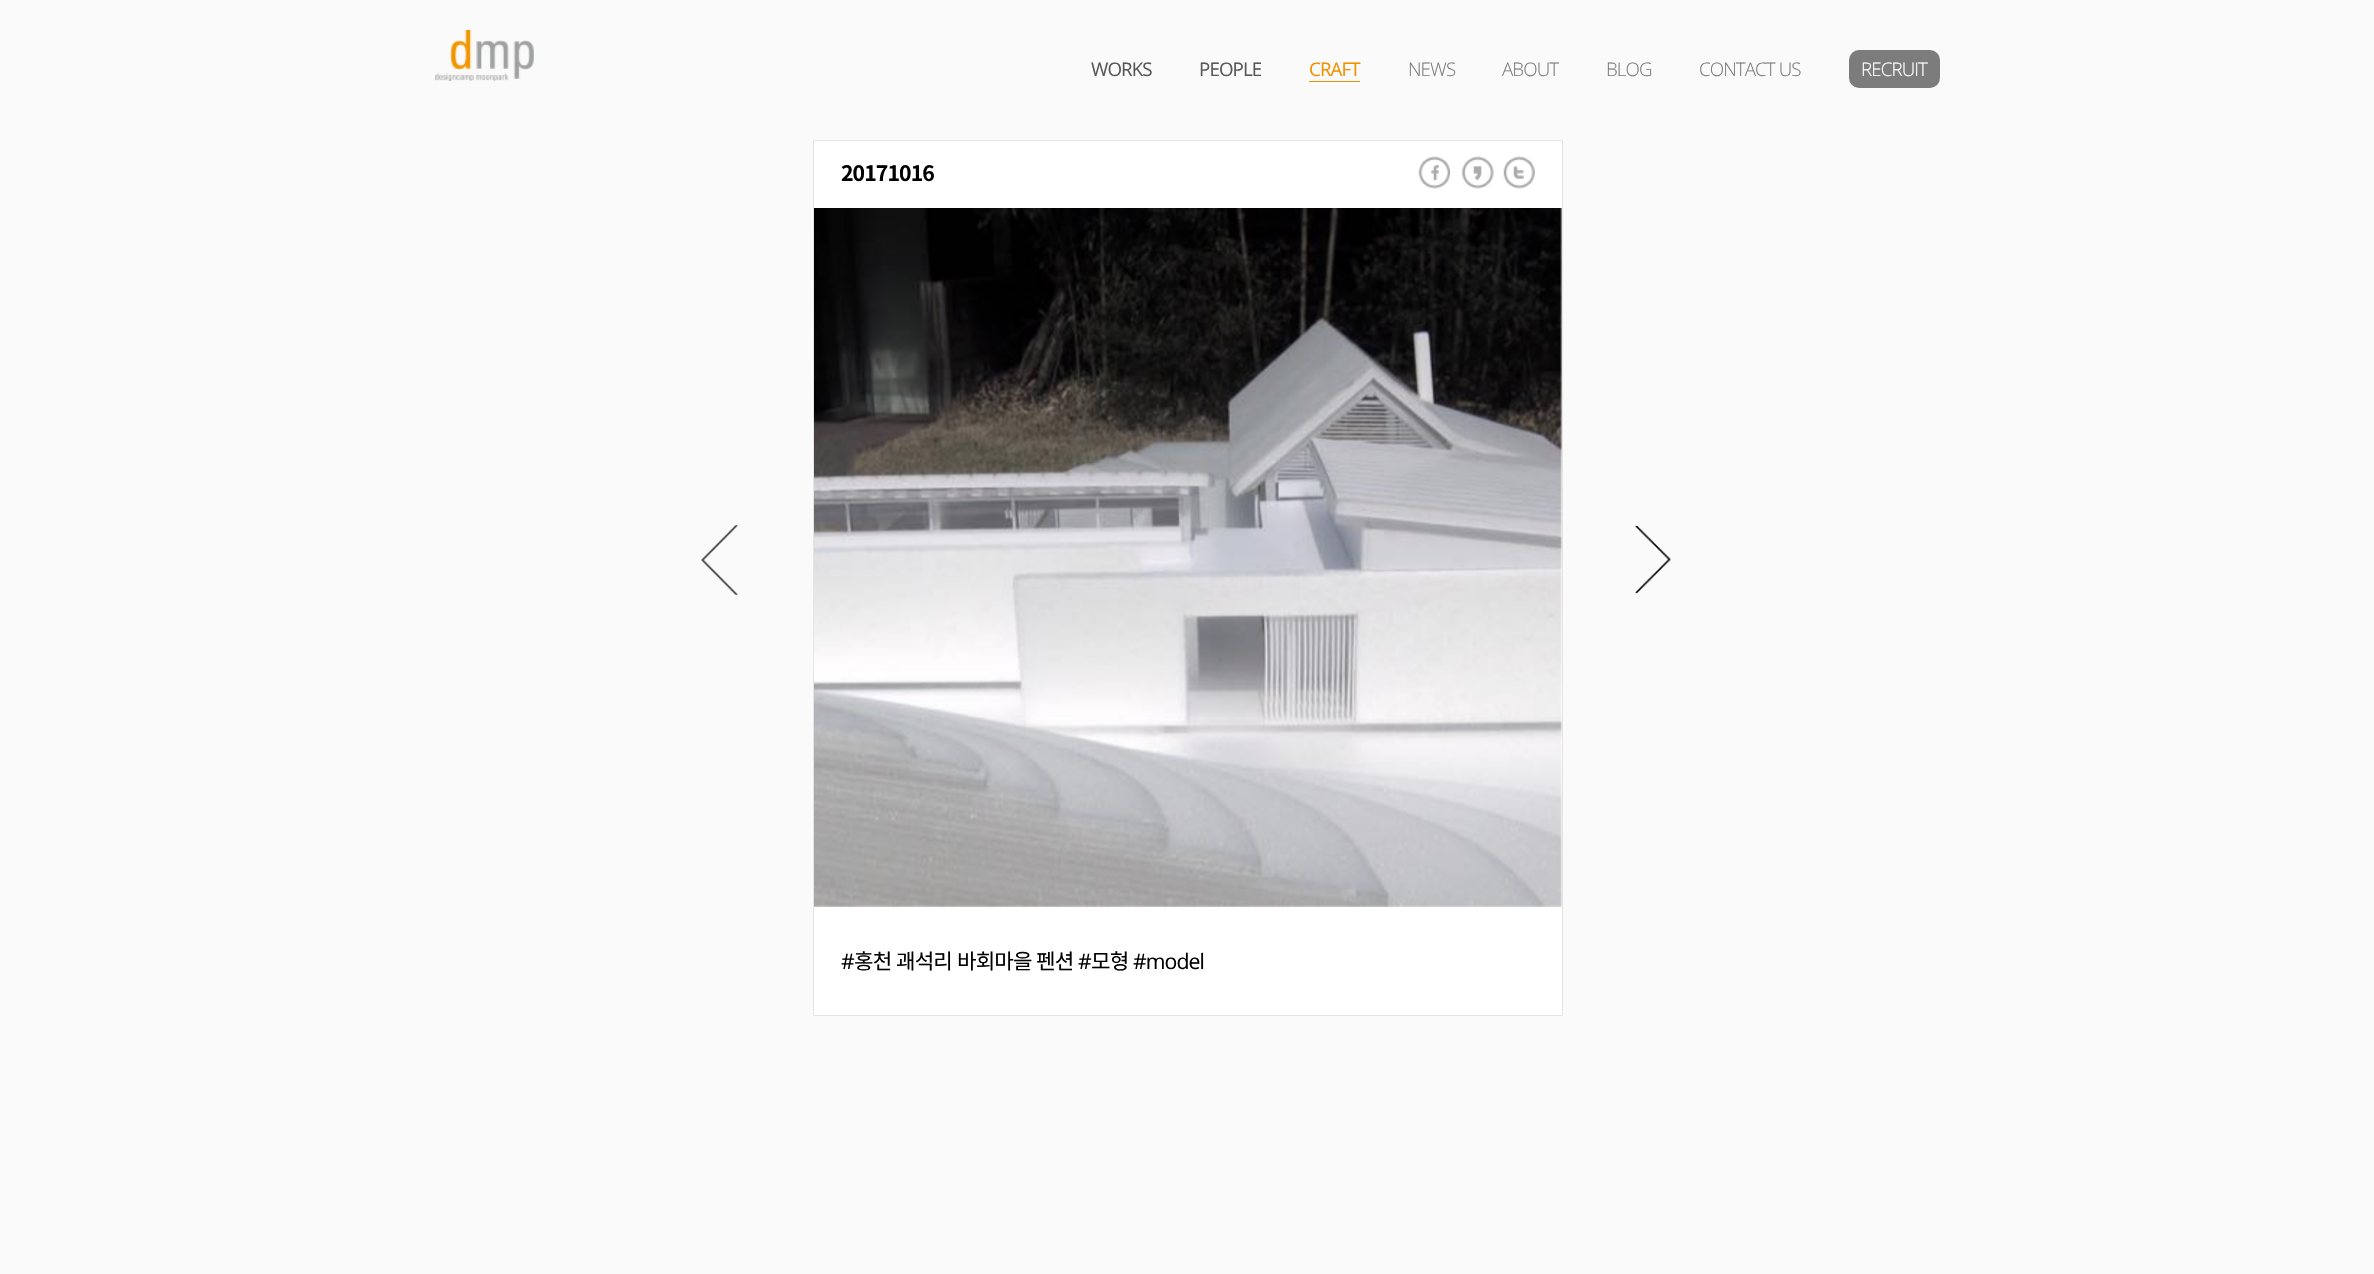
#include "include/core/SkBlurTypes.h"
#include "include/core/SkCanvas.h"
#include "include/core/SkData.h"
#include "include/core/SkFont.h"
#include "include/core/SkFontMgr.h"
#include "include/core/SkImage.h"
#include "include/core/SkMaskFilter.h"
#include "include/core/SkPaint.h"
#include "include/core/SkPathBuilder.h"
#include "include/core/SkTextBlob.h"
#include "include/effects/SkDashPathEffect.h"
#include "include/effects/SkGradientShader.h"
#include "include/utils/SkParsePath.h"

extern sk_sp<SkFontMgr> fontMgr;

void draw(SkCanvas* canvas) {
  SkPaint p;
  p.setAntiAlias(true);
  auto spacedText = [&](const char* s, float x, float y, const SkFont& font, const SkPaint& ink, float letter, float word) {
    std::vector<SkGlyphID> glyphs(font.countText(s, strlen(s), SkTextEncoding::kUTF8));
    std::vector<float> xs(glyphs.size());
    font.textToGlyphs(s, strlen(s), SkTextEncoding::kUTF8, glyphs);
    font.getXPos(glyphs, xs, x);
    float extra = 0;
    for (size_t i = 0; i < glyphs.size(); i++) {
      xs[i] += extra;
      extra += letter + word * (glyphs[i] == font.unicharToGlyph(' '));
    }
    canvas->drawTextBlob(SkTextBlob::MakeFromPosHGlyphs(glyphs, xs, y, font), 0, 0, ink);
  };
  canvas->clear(SkColorSetRGB(250, 250, 250));
  canvas->drawImageRect(SkImages::DeferredFromEncodedData(SkData::MakeFromFileName("images/1.png")), SkRect::MakeLTRB(435, 30, 534, 81), SkSamplingOptions());
  p.setColor(SkColorSetRGB(241, 145, 0));
  canvas->drawRect(SkRect::MakeLTRB(1309, 81, 1360, 82), p);
  p.setColor(SkColorSetRGB(124, 124, 124));
  canvas->drawRoundRect(SkRect::MakeLTRB(1849, 50, 1940, 88), 10, 10, p);
  p.setColor(SK_ColorWHITE);
  canvas->drawRect(SkRect::MakeLTRB(813.5f, 140.5f, 1562.5f, 1015.5f), p);
  p.setStyle(SkPaint::kStroke_Style);
  p.setStrokeWidth(1);
  p.setColor(SkColorSetRGB(229, 229, 229));
  canvas->drawRect(SkRect::MakeLTRB(813.5f, 140.5f, 1562.5f, 1015.5f), p);
  canvas->drawImageRect(SkImages::DeferredFromEncodedData(SkData::MakeFromFileName("images/2.png")), SkRect::MakeLTRB(1418, 156, 1450, 189), SkSamplingOptions());
  canvas->drawImageRect(SkImages::DeferredFromEncodedData(SkData::MakeFromFileName("images/3.png")), SkRect::MakeLTRB(1461, 156, 1494, 189), SkSamplingOptions());
  canvas->drawImageRect(SkImages::DeferredFromEncodedData(SkData::MakeFromFileName("images/4.png")), SkRect::MakeLTRB(1503, 156, 1535, 189), SkSamplingOptions());
  canvas->drawImageRect(SkImages::DeferredFromEncodedData(SkData::MakeFromFileName("images/5.png")), SkRect::MakeLTRB(814, 208, 1562, 907), SkSamplingOptions());
  canvas->drawImageRect(SkImages::DeferredFromEncodedData(SkData::MakeFromFileName("images/6.png")), SkRect::MakeLTRB(701, 525, 738, 595), SkSamplingOptions());
  canvas->drawImageRect(SkImages::DeferredFromEncodedData(SkData::MakeFromFileName("images/7.png")), SkRect::MakeLTRB(1635, 525, 1671, 594), SkSamplingOptions());
  SkFont font1(fontMgr->matchFamilyStyle("Open Sans", SkFontStyle::Normal()), 18.75f);
  font1.setSubpixel(true);
  p.setStyle(SkPaint::kFill_Style);
  p.setColor(SkColorSetRGB(87, 87, 87));
  spacedText("WORKS", 1091, 76, font1, p, -0.9f, 0);
  spacedText("PEOPLE", 1199, 76, font1, p, -0.9f, 0);
  p.setColor(SkColorSetRGB(241, 145, 0));
  spacedText("CRAFT", 1309, 76, font1, p, -0.9f, 0);
  SkFont font2(fontMgr->matchFamilyStyle("Open Sans", SkFontStyle(300, SkFontStyle::kNormal_Width, SkFontStyle::kUpright_Slant)), 18.75f);
  font2.setSubpixel(true);
  p.setColor(SkColorSetRGB(124, 124, 124));
  spacedText("NEWS", 1408, 76, font2, p, -0.9f, 0);
  spacedText("ABOUT", 1502, 76, font2, p, -0.9f, 0);
  spacedText("BLOG", 1606, 76, font2, p, -0.9f, 0);
  spacedText("CONTACT US", 1699, 76, font2, p, -0.9f, 0);
  p.setColor(SK_ColorWHITE);
  spacedText("RECRUIT", 1861, 76, font2, p, -0.9f, 0);
  SkFont font3(fontMgr->matchFamilyStyle("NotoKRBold", SkFontStyle::Bold()), 21.25f);
  font3.setSubpixel(true);
  p.setColor(SK_ColorBLACK);
  spacedText("20171016", 841, 181, font3, p, -0.9f, 0);
  SkFont font4(fontMgr->matchFamilyStyle("Open Sans", SkFontStyle::Normal()), 21.25f);
  font4.setSubpixel(true);
  spacedText("#", 841, 969, font4, p, -0.9f, 0);
  SkFont font5(fontMgr->matchFamilyStyle("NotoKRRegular", SkFontStyle::Normal()), 21.25f);
  font5.setSubpixel(true);
  spacedText("홍천", 854, 969, font5, p, -0.9f, 0);
  spacedText("괘석리", 896, 969, font5, p, -0.9f, 0);
  spacedText("바회마을", 957, 969, font5, p, -0.9f, 0);
  spacedText("펜션", 1036, 969, font5, p, -0.9f, 0);
  spacedText("#", 1078, 969, font4, p, -0.9f, 0);
  spacedText("모형", 1091, 969, font5, p, -0.9f, 0);
  spacedText("#model", 1133, 969, font4, p, -0.9f, 0);
}
